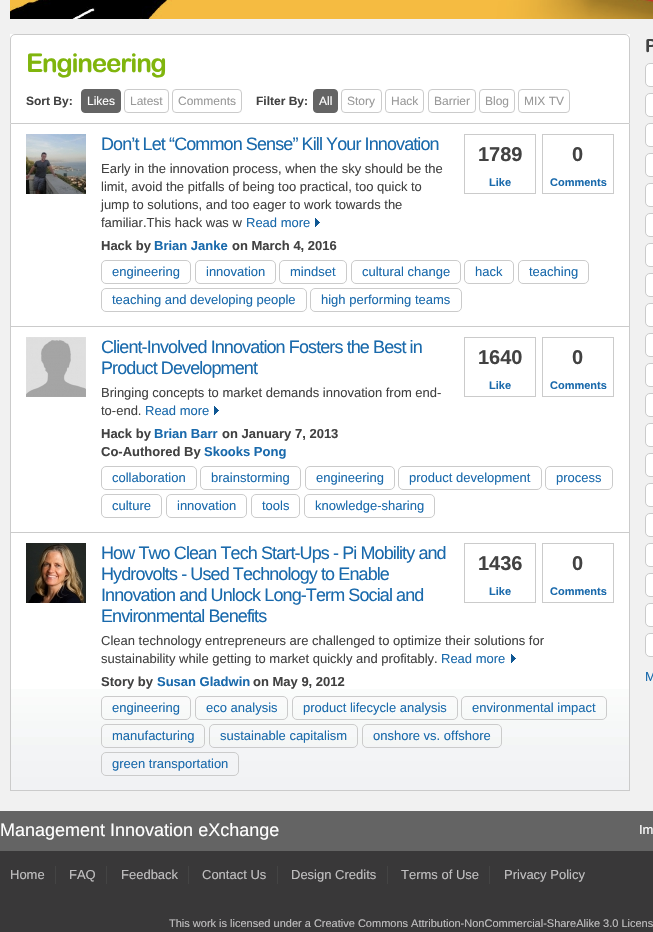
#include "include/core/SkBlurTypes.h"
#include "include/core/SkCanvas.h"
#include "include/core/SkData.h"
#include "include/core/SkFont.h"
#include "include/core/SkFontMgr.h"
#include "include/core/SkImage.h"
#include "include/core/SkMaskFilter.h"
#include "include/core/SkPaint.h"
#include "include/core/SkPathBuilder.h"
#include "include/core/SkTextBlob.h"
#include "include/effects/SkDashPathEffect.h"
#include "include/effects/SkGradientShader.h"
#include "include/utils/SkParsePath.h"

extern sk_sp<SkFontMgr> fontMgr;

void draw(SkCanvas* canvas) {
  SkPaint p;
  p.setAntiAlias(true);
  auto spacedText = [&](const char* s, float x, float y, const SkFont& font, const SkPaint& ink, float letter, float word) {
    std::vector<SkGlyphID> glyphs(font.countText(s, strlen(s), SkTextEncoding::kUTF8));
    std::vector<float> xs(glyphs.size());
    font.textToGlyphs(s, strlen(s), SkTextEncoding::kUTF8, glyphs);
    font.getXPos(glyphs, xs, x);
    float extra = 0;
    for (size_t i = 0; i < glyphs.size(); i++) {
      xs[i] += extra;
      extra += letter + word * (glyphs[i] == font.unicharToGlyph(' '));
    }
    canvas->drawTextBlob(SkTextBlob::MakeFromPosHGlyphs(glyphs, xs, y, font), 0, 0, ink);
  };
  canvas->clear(SkColorSetRGB(57, 56, 57));
  p.setColor(SkColorSetRGB(241, 241, 241));
  canvas->drawRect(SkRect::MakeLTRB(0, 0, 653, 811), p);
  canvas->drawImageRect(SkImages::DeferredFromEncodedData(SkData::MakeFromFileName("images/1.png")), SkRect::MakeLTRB(10, 0, 653, 19), SkSamplingOptions());
  p.setColor(SK_ColorWHITE);
  canvas->drawRect(SkRect::MakeLTRB(10, 34, 630, 689), p);
  canvas->drawImageRect(SkImages::DeferredFromEncodedData(SkData::MakeFromFileName("images/2.png")), SkRect::MakeLTRB(11, 689, 629, 790), SkSamplingOptions());
  p.setStyle(SkPaint::kStroke_Style);
  p.setStrokeWidth(1);
  p.setColor(SkColorSetRGB(203, 203, 203));
  canvas->drawPath(SkPathBuilder().moveTo(15, 34.5f).lineTo(625, 34.5f).cubicTo(627.5f, 34.5f, 629.5f, 36.5f, 629.5f, 39).lineTo(629.5f, 123.5f).lineTo(10.5f, 123.5f).lineTo(10.5f, 39).cubicTo(10.5f, 36.5f, 12.5f, 34.5f, 15, 34.5f).close().detach(), p);
  p.setStyle(SkPaint::kFill_Style);
  p.setColor(SkColorSetRGB(100, 100, 100));
  canvas->drawRoundRect(SkRect::MakeLTRB(81.5f, 89.5f, 120.5f, 112.5f), 3.5f, 3.5f, p);
  p.setStyle(SkPaint::kStroke_Style);
  canvas->drawRoundRect(SkRect::MakeLTRB(81.5f, 89.5f, 120.5f, 112.5f), 3.5f, 3.5f, p);
  p.setColor(SkColorSetRGB(203, 203, 203));
  canvas->drawRoundRect(SkRect::MakeLTRB(124.5f, 89.5f, 168.5f, 112.5f), 3.5f, 3.5f, p);
  canvas->drawRoundRect(SkRect::MakeLTRB(172.5f, 89.5f, 241.5f, 112.5f), 3.5f, 3.5f, p);
  p.setStyle(SkPaint::kFill_Style);
  p.setColor(SkColorSetRGB(100, 100, 100));
  canvas->drawRoundRect(SkRect::MakeLTRB(313.5f, 89.5f, 337.5f, 112.5f), 3.5f, 3.5f, p);
  p.setStyle(SkPaint::kStroke_Style);
  canvas->drawRoundRect(SkRect::MakeLTRB(313.5f, 89.5f, 337.5f, 112.5f), 3.5f, 3.5f, p);
  p.setColor(SkColorSetRGB(203, 203, 203));
  canvas->drawRoundRect(SkRect::MakeLTRB(341.5f, 89.5f, 381.5f, 112.5f), 3.5f, 3.5f, p);
  canvas->drawRoundRect(SkRect::MakeLTRB(385.5f, 89.5f, 423.5f, 112.5f), 3.5f, 3.5f, p);
  canvas->drawRoundRect(SkRect::MakeLTRB(428.5f, 89.5f, 475.5f, 112.5f), 3.5f, 3.5f, p);
  canvas->drawRoundRect(SkRect::MakeLTRB(479.5f, 89.5f, 514.5f, 112.5f), 3.5f, 3.5f, p);
  canvas->drawRoundRect(SkRect::MakeLTRB(518.5f, 89.5f, 569.5f, 112.5f), 3.5f, 3.5f, p);
  p.setStyle(SkPaint::kFill_Style);
  canvas->drawRect(SkRect::MakeLTRB(629, 124, 630, 791), p);
  canvas->drawRect(SkRect::MakeLTRB(10, 326, 630, 327), p);
  canvas->drawRect(SkRect::MakeLTRB(10, 124, 11, 327), p);
  canvas->drawImageRect(SkImages::DeferredFromEncodedData(SkData::MakeFromFileName("images/3.png")), SkRect::MakeLTRB(26, 134, 86, 194), SkSamplingOptions());
  canvas->drawRect(SkRect::MakeLTRB(464, 134, 536, 135), p);
  canvas->drawRect(SkRect::MakeLTRB(535, 134, 536, 194), p);
  canvas->drawRect(SkRect::MakeLTRB(464, 134, 465, 171), p);
  canvas->drawRect(SkRect::MakeLTRB(464, 193, 536, 194), p);
  canvas->drawRect(SkRect::MakeLTRB(464, 171, 465, 194), p);
  canvas->drawRect(SkRect::MakeLTRB(542, 134, 614, 135), p);
  canvas->drawRect(SkRect::MakeLTRB(613, 134, 614, 194), p);
  canvas->drawRect(SkRect::MakeLTRB(542, 134, 543, 171), p);
  canvas->drawRect(SkRect::MakeLTRB(542, 193, 614, 194), p);
  canvas->drawRect(SkRect::MakeLTRB(542, 171, 543, 194), p);
  canvas->drawImageRect(SkImages::DeferredFromEncodedData(SkData::MakeFromFileName("images/4.png")), SkRect::MakeLTRB(315, 218, 320, 227), SkSamplingOptions());
  p.setStyle(SkPaint::kStroke_Style);
  canvas->drawRoundRect(SkRect::MakeLTRB(101.5f, 260.5f, 190.5f, 283.5f), 4.5f, 4.5f, p);
  canvas->drawRoundRect(SkRect::MakeLTRB(195.5f, 260.5f, 275.5f, 283.5f), 4.5f, 4.5f, p);
  canvas->drawRoundRect(SkRect::MakeLTRB(279.5f, 260.5f, 346.5f, 283.5f), 4.5f, 4.5f, p);
  canvas->drawRoundRect(SkRect::MakeLTRB(351.5f, 260.5f, 460.5f, 283.5f), 4.5f, 4.5f, p);
  canvas->drawRoundRect(SkRect::MakeLTRB(464.5f, 260.5f, 513.5f, 283.5f), 4.5f, 4.5f, p);
  canvas->drawRoundRect(SkRect::MakeLTRB(518.5f, 260.5f, 588.5f, 283.5f), 4.5f, 4.5f, p);
  canvas->drawRoundRect(SkRect::MakeLTRB(101.5f, 288.5f, 306.5f, 311.5f), 4.5f, 4.5f, p);
  canvas->drawRoundRect(SkRect::MakeLTRB(310.5f, 288.5f, 461.5f, 311.5f), 4.5f, 4.5f, p);
  p.setStyle(SkPaint::kFill_Style);
  canvas->drawRect(SkRect::MakeLTRB(10, 532, 630, 533), p);
  canvas->drawRect(SkRect::MakeLTRB(10, 327, 11, 533), p);
  canvas->drawImageRect(SkImages::DeferredFromEncodedData(SkData::MakeFromFileName("images/5.png")), SkRect::MakeLTRB(26, 337, 86, 397), SkSamplingOptions());
  canvas->drawRect(SkRect::MakeLTRB(464, 337, 536, 338), p);
  canvas->drawRect(SkRect::MakeLTRB(535, 337, 536, 397), p);
  canvas->drawRect(SkRect::MakeLTRB(464, 337, 465, 374), p);
  canvas->drawRect(SkRect::MakeLTRB(464, 396, 536, 397), p);
  canvas->drawRect(SkRect::MakeLTRB(464, 374, 465, 397), p);
  canvas->drawRect(SkRect::MakeLTRB(542, 337, 614, 338), p);
  canvas->drawRect(SkRect::MakeLTRB(613, 337, 614, 397), p);
  canvas->drawRect(SkRect::MakeLTRB(542, 337, 543, 374), p);
  canvas->drawRect(SkRect::MakeLTRB(542, 396, 614, 397), p);
  canvas->drawRect(SkRect::MakeLTRB(542, 374, 543, 397), p);
  canvas->drawImageRect(SkImages::DeferredFromEncodedData(SkData::MakeFromFileName("images/4.png")), SkRect::MakeLTRB(214, 406, 219, 415), SkSamplingOptions());
  p.setStyle(SkPaint::kStroke_Style);
  canvas->drawRoundRect(SkRect::MakeLTRB(101.5f, 466.5f, 196.5f, 489.5f), 4.5f, 4.5f, p);
  canvas->drawRoundRect(SkRect::MakeLTRB(200.5f, 466.5f, 300.5f, 489.5f), 4.5f, 4.5f, p);
  canvas->drawRoundRect(SkRect::MakeLTRB(305.5f, 466.5f, 394.5f, 489.5f), 4.5f, 4.5f, p);
  canvas->drawRoundRect(SkRect::MakeLTRB(398.5f, 466.5f, 541.5f, 489.5f), 4.5f, 4.5f, p);
  canvas->drawRoundRect(SkRect::MakeLTRB(545.5f, 466.5f, 612.5f, 489.5f), 4.5f, 4.5f, p);
  canvas->drawRoundRect(SkRect::MakeLTRB(101.5f, 494.5f, 161.5f, 517.5f), 4.5f, 4.5f, p);
  canvas->drawRoundRect(SkRect::MakeLTRB(166.5f, 494.5f, 246.5f, 517.5f), 4.5f, 4.5f, p);
  canvas->drawRoundRect(SkRect::MakeLTRB(251.5f, 494.5f, 299.5f, 517.5f), 4.5f, 4.5f, p);
  canvas->drawRoundRect(SkRect::MakeLTRB(304.5f, 494.5f, 434.5f, 517.5f), 4.5f, 4.5f, p);
  p.setStyle(SkPaint::kFill_Style);
  canvas->drawRect(SkRect::MakeLTRB(10, 790, 630, 791), p);
  canvas->drawRect(SkRect::MakeLTRB(10, 533, 11, 791), p);
  canvas->drawImageRect(SkImages::DeferredFromEncodedData(SkData::MakeFromFileName("images/6.png")), SkRect::MakeLTRB(26, 543, 86, 603), SkSamplingOptions());
  canvas->drawRect(SkRect::MakeLTRB(464, 543, 536, 544), p);
  canvas->drawRect(SkRect::MakeLTRB(535, 543, 536, 603), p);
  canvas->drawRect(SkRect::MakeLTRB(464, 543, 465, 580), p);
  canvas->drawRect(SkRect::MakeLTRB(464, 602, 536, 603), p);
  canvas->drawRect(SkRect::MakeLTRB(464, 580, 465, 603), p);
  canvas->drawRect(SkRect::MakeLTRB(542, 543, 614, 544), p);
  canvas->drawRect(SkRect::MakeLTRB(613, 543, 614, 603), p);
  canvas->drawRect(SkRect::MakeLTRB(542, 543, 543, 580), p);
  canvas->drawRect(SkRect::MakeLTRB(542, 602, 614, 603), p);
  canvas->drawRect(SkRect::MakeLTRB(542, 580, 543, 603), p);
  canvas->drawImageRect(SkImages::DeferredFromEncodedData(SkData::MakeFromFileName("images/4.png")), SkRect::MakeLTRB(511, 654, 516, 663), SkSamplingOptions());
  p.setStyle(SkPaint::kStroke_Style);
  canvas->drawRoundRect(SkRect::MakeLTRB(101.5f, 696.5f, 190.5f, 719.5f), 4.5f, 4.5f, p);
  canvas->drawRoundRect(SkRect::MakeLTRB(195.5f, 696.5f, 287.5f, 719.5f), 4.5f, 4.5f, p);
  canvas->drawRoundRect(SkRect::MakeLTRB(292.5f, 696.5f, 457.5f, 719.5f), 4.5f, 4.5f, p);
  canvas->drawRoundRect(SkRect::MakeLTRB(461.5f, 696.5f, 606.5f, 719.5f), 4.5f, 4.5f, p);
  canvas->drawRoundRect(SkRect::MakeLTRB(101.5f, 724.5f, 204.5f, 747.5f), 4.5f, 4.5f, p);
  canvas->drawRoundRect(SkRect::MakeLTRB(209.5f, 724.5f, 357.5f, 747.5f), 4.5f, 4.5f, p);
  canvas->drawRoundRect(SkRect::MakeLTRB(362.5f, 724.5f, 501.5f, 747.5f), 4.5f, 4.5f, p);
  canvas->drawRoundRect(SkRect::MakeLTRB(101.5f, 752.5f, 238.5f, 775.5f), 4.5f, 4.5f, p);
  p.setStyle(SkPaint::kFill_Style);
  p.setColor(SK_ColorWHITE);
  canvas->drawRoundRect(SkRect::MakeLTRB(645.5f, 63.5f, 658.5f, 86.5f), 4.5f, 4.5f, p);
  p.setStyle(SkPaint::kStroke_Style);
  p.setColor(SkColorSetRGB(203, 203, 203));
  canvas->drawRoundRect(SkRect::MakeLTRB(645.5f, 63.5f, 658.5f, 86.5f), 4.5f, 4.5f, p);
  p.setStyle(SkPaint::kFill_Style);
  p.setColor(SK_ColorWHITE);
  canvas->drawRoundRect(SkRect::MakeLTRB(645.5f, 93.5f, 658.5f, 116.5f), 4.5f, 4.5f, p);
  p.setStyle(SkPaint::kStroke_Style);
  p.setColor(SkColorSetRGB(203, 203, 203));
  canvas->drawRoundRect(SkRect::MakeLTRB(645.5f, 93.5f, 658.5f, 116.5f), 4.5f, 4.5f, p);
  p.setStyle(SkPaint::kFill_Style);
  p.setColor(SK_ColorWHITE);
  canvas->drawRoundRect(SkRect::MakeLTRB(645.5f, 123.5f, 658.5f, 146.5f), 4.5f, 4.5f, p);
  p.setStyle(SkPaint::kStroke_Style);
  p.setColor(SkColorSetRGB(203, 203, 203));
  canvas->drawRoundRect(SkRect::MakeLTRB(645.5f, 123.5f, 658.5f, 146.5f), 4.5f, 4.5f, p);
  p.setStyle(SkPaint::kFill_Style);
  p.setColor(SK_ColorWHITE);
  canvas->drawRoundRect(SkRect::MakeLTRB(645.5f, 153.5f, 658.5f, 176.5f), 4.5f, 4.5f, p);
  p.setStyle(SkPaint::kStroke_Style);
  p.setColor(SkColorSetRGB(203, 203, 203));
  canvas->drawRoundRect(SkRect::MakeLTRB(645.5f, 153.5f, 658.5f, 176.5f), 4.5f, 4.5f, p);
  p.setStyle(SkPaint::kFill_Style);
  p.setColor(SK_ColorWHITE);
  canvas->drawRoundRect(SkRect::MakeLTRB(645.5f, 183.5f, 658.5f, 206.5f), 4.5f, 4.5f, p);
  p.setStyle(SkPaint::kStroke_Style);
  p.setColor(SkColorSetRGB(203, 203, 203));
  canvas->drawRoundRect(SkRect::MakeLTRB(645.5f, 183.5f, 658.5f, 206.5f), 4.5f, 4.5f, p);
  p.setStyle(SkPaint::kFill_Style);
  p.setColor(SK_ColorWHITE);
  canvas->drawRoundRect(SkRect::MakeLTRB(645.5f, 213.5f, 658.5f, 236.5f), 4.5f, 4.5f, p);
  p.setStyle(SkPaint::kStroke_Style);
  p.setColor(SkColorSetRGB(203, 203, 203));
  canvas->drawRoundRect(SkRect::MakeLTRB(645.5f, 213.5f, 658.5f, 236.5f), 4.5f, 4.5f, p);
  p.setStyle(SkPaint::kFill_Style);
  p.setColor(SK_ColorWHITE);
  canvas->drawRoundRect(SkRect::MakeLTRB(645.5f, 243.5f, 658.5f, 266.5f), 4.5f, 4.5f, p);
  p.setStyle(SkPaint::kStroke_Style);
  p.setColor(SkColorSetRGB(203, 203, 203));
  canvas->drawRoundRect(SkRect::MakeLTRB(645.5f, 243.5f, 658.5f, 266.5f), 4.5f, 4.5f, p);
  p.setStyle(SkPaint::kFill_Style);
  p.setColor(SK_ColorWHITE);
  canvas->drawRoundRect(SkRect::MakeLTRB(645.5f, 273.5f, 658.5f, 296.5f), 4.5f, 4.5f, p);
  p.setStyle(SkPaint::kStroke_Style);
  p.setColor(SkColorSetRGB(203, 203, 203));
  canvas->drawRoundRect(SkRect::MakeLTRB(645.5f, 273.5f, 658.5f, 296.5f), 4.5f, 4.5f, p);
  p.setStyle(SkPaint::kFill_Style);
  p.setColor(SK_ColorWHITE);
  canvas->drawRoundRect(SkRect::MakeLTRB(645.5f, 303.5f, 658.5f, 326.5f), 4.5f, 4.5f, p);
  p.setStyle(SkPaint::kStroke_Style);
  p.setColor(SkColorSetRGB(203, 203, 203));
  canvas->drawRoundRect(SkRect::MakeLTRB(645.5f, 303.5f, 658.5f, 326.5f), 4.5f, 4.5f, p);
  p.setStyle(SkPaint::kFill_Style);
  p.setColor(SK_ColorWHITE);
  canvas->drawRoundRect(SkRect::MakeLTRB(645.5f, 333.5f, 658.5f, 356.5f), 4.5f, 4.5f, p);
  p.setStyle(SkPaint::kStroke_Style);
  p.setColor(SkColorSetRGB(203, 203, 203));
  canvas->drawRoundRect(SkRect::MakeLTRB(645.5f, 333.5f, 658.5f, 356.5f), 4.5f, 4.5f, p);
  p.setStyle(SkPaint::kFill_Style);
  p.setColor(SK_ColorWHITE);
  canvas->drawRoundRect(SkRect::MakeLTRB(645.5f, 363.5f, 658.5f, 386.5f), 4.5f, 4.5f, p);
  p.setStyle(SkPaint::kStroke_Style);
  p.setColor(SkColorSetRGB(203, 203, 203));
  canvas->drawRoundRect(SkRect::MakeLTRB(645.5f, 363.5f, 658.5f, 386.5f), 4.5f, 4.5f, p);
  p.setStyle(SkPaint::kFill_Style);
  p.setColor(SK_ColorWHITE);
  canvas->drawRoundRect(SkRect::MakeLTRB(645.5f, 393.5f, 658.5f, 416.5f), 4.5f, 4.5f, p);
  p.setStyle(SkPaint::kStroke_Style);
  p.setColor(SkColorSetRGB(203, 203, 203));
  canvas->drawRoundRect(SkRect::MakeLTRB(645.5f, 393.5f, 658.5f, 416.5f), 4.5f, 4.5f, p);
  p.setStyle(SkPaint::kFill_Style);
  p.setColor(SK_ColorWHITE);
  canvas->drawRoundRect(SkRect::MakeLTRB(645.5f, 423.5f, 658.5f, 446.5f), 4.5f, 4.5f, p);
  p.setStyle(SkPaint::kStroke_Style);
  p.setColor(SkColorSetRGB(203, 203, 203));
  canvas->drawRoundRect(SkRect::MakeLTRB(645.5f, 423.5f, 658.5f, 446.5f), 4.5f, 4.5f, p);
  p.setStyle(SkPaint::kFill_Style);
  p.setColor(SK_ColorWHITE);
  canvas->drawRoundRect(SkRect::MakeLTRB(645.5f, 453.5f, 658.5f, 476.5f), 4.5f, 4.5f, p);
  p.setStyle(SkPaint::kStroke_Style);
  p.setColor(SkColorSetRGB(203, 203, 203));
  canvas->drawRoundRect(SkRect::MakeLTRB(645.5f, 453.5f, 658.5f, 476.5f), 4.5f, 4.5f, p);
  p.setStyle(SkPaint::kFill_Style);
  p.setColor(SK_ColorWHITE);
  canvas->drawRoundRect(SkRect::MakeLTRB(645.5f, 483.5f, 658.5f, 506.5f), 4.5f, 4.5f, p);
  p.setStyle(SkPaint::kStroke_Style);
  p.setColor(SkColorSetRGB(203, 203, 203));
  canvas->drawRoundRect(SkRect::MakeLTRB(645.5f, 483.5f, 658.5f, 506.5f), 4.5f, 4.5f, p);
  p.setStyle(SkPaint::kFill_Style);
  p.setColor(SK_ColorWHITE);
  canvas->drawRoundRect(SkRect::MakeLTRB(645.5f, 513.5f, 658.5f, 536.5f), 4.5f, 4.5f, p);
  p.setStyle(SkPaint::kStroke_Style);
  p.setColor(SkColorSetRGB(203, 203, 203));
  canvas->drawRoundRect(SkRect::MakeLTRB(645.5f, 513.5f, 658.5f, 536.5f), 4.5f, 4.5f, p);
  p.setStyle(SkPaint::kFill_Style);
  p.setColor(SK_ColorWHITE);
  canvas->drawRoundRect(SkRect::MakeLTRB(645.5f, 543.5f, 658.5f, 566.5f), 4.5f, 4.5f, p);
  p.setStyle(SkPaint::kStroke_Style);
  p.setColor(SkColorSetRGB(203, 203, 203));
  canvas->drawRoundRect(SkRect::MakeLTRB(645.5f, 543.5f, 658.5f, 566.5f), 4.5f, 4.5f, p);
  p.setStyle(SkPaint::kFill_Style);
  p.setColor(SK_ColorWHITE);
  canvas->drawRoundRect(SkRect::MakeLTRB(645.5f, 573.5f, 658.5f, 596.5f), 4.5f, 4.5f, p);
  p.setStyle(SkPaint::kStroke_Style);
  p.setColor(SkColorSetRGB(203, 203, 203));
  canvas->drawRoundRect(SkRect::MakeLTRB(645.5f, 573.5f, 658.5f, 596.5f), 4.5f, 4.5f, p);
  p.setStyle(SkPaint::kFill_Style);
  p.setColor(SK_ColorWHITE);
  canvas->drawRoundRect(SkRect::MakeLTRB(645.5f, 603.5f, 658.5f, 626.5f), 4.5f, 4.5f, p);
  p.setStyle(SkPaint::kStroke_Style);
  p.setColor(SkColorSetRGB(203, 203, 203));
  canvas->drawRoundRect(SkRect::MakeLTRB(645.5f, 603.5f, 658.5f, 626.5f), 4.5f, 4.5f, p);
  p.setStyle(SkPaint::kFill_Style);
  p.setColor(SK_ColorWHITE);
  canvas->drawRoundRect(SkRect::MakeLTRB(645.5f, 633.5f, 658.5f, 656.5f), 4.5f, 4.5f, p);
  p.setStyle(SkPaint::kStroke_Style);
  p.setColor(SkColorSetRGB(203, 203, 203));
  canvas->drawRoundRect(SkRect::MakeLTRB(645.5f, 633.5f, 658.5f, 656.5f), 4.5f, 4.5f, p);
  p.setStyle(SkPaint::kFill_Style);
  p.setColor(SkColorSetRGB(100, 100, 100));
  canvas->drawRect(SkRect::MakeLTRB(0, 811, 653, 851), p);
  p.setColor(SkColorSetRGB(68, 68, 68));
  canvas->drawRect(SkRect::MakeLTRB(55, 866, 56, 884), p);
  canvas->drawRect(SkRect::MakeLTRB(106, 866, 107, 884), p);
  canvas->drawRect(SkRect::MakeLTRB(188, 866, 189, 884), p);
  canvas->drawRect(SkRect::MakeLTRB(277, 866, 278, 884), p);
  canvas->drawRect(SkRect::MakeLTRB(387, 866, 388, 884), p);
  canvas->drawRect(SkRect::MakeLTRB(489, 866, 490, 884), p);
  SkFont font1(fontMgr->matchFamilyStyle("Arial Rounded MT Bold", SkFontStyle::Bold()), 26);
  font1.setSubpixel(true);
  p.setColor(SkColorSetRGB(128, 181, 13));
  spacedText("Engineering", 26, 72, font1, p, -1.25f, 0);
  SkFont font2(fontMgr->matchFamilyStyle("Liberation Sans", SkFontStyle::Bold()), 12);
  font2.setSubpixel(true);
  p.setColor(SkColorSetRGB(66, 66, 66));
  canvas->drawString("Sort By:", 26, 105, font2, p);
  SkFont font3(fontMgr->matchFamilyStyle("Liberation Sans", SkFontStyle::Normal()), 12);
  font3.setSubpixel(true);
  p.setColor(SK_ColorWHITE);
  canvas->drawString("Likes", 87, 105, font3, p);
  p.setColor(SkColorSetRGB(153, 153, 153));
  canvas->drawString("Latest", 130, 105, font3, p);
  canvas->drawString("Comments", 178, 105, font3, p);
  p.setColor(SkColorSetRGB(66, 66, 66));
  canvas->drawString("Filter By:", 256, 105, font2, p);
  p.setColor(SK_ColorWHITE);
  canvas->drawString("All", 319, 105, font3, p);
  p.setColor(SkColorSetRGB(153, 153, 153));
  canvas->drawString("Story", 347, 105, font3, p);
  canvas->drawString("Hack", 391, 105, font3, p);
  canvas->drawString("Barrier", 434, 105, font3, p);
  canvas->drawString("Blog", 485, 105, font3, p);
  canvas->drawString("MIX TV", 524, 105, font3, p);
  SkFont font4(fontMgr->matchFamilyStyle("Liberation Sans", SkFontStyle::Normal()), 18);
  font4.setSubpixel(true);
  p.setColor(SkColorSetRGB(26, 106, 172));
  spacedText("Don’t Let “Common Sense” Kill Your Innovation", 101, 150, font4, p, -0.9f, 0);
  SkFont font5(fontMgr->matchFamilyStyle("Liberation Sans", SkFontStyle::Normal()), 13);
  font5.setSubpixel(true);
  p.setColor(SkColorSetRGB(66, 66, 66));
  canvas->drawString("Early in the innovation process, when the sky should be the", 101, 173, font5, p);
  SkFont font6(fontMgr->matchFamilyStyle("Liberation Sans", SkFontStyle::Bold()), 20);
  font6.setSubpixel(true);
  canvas->drawString("1789", 478, 161, font6, p);
  SkFont font7(fontMgr->matchFamilyStyle("Liberation Sans", SkFontStyle::Bold()), 11);
  font7.setSubpixel(true);
  p.setColor(SkColorSetRGB(26, 106, 172));
  canvas->drawString("Like", 489, 186, font7, p);
  p.setColor(SkColorSetRGB(66, 66, 66));
  canvas->drawString("0", 572, 161, font6, p);
  p.setColor(SkColorSetRGB(26, 106, 172));
  canvas->drawString("Comments", 550, 186, font7, p);
  p.setColor(SkColorSetRGB(66, 66, 66));
  canvas->drawString("limit, avoid the pitfalls of being too practical, too quick to", 101, 191, font5, p);
  canvas->drawString("jump to solutions, and too eager to work towards the", 101, 209, font5, p);
  canvas->drawString("familiar.This hack was w", 101, 227, font5, p);
  p.setColor(SkColorSetRGB(26, 106, 172));
  canvas->drawString("Read more", 246, 227, font5, p);
  SkFont font8(fontMgr->matchFamilyStyle("Liberation Sans", SkFontStyle::Bold()), 13);
  font8.setSubpixel(true);
  p.setColor(SkColorSetRGB(66, 66, 66));
  canvas->drawString("Hack by", 101, 250, font8, p);
  p.setColor(SkColorSetRGB(26, 106, 172));
  canvas->drawString("Brian Janke", 154, 250, font8, p);
  p.setColor(SkColorSetRGB(66, 66, 66));
  canvas->drawString("on March 4, 2016", 232, 250, font8, p);
  p.setColor(SkColorSetRGB(26, 106, 172));
  canvas->drawString("engineering", 112, 276, font5, p);
  canvas->drawString("innovation", 206, 276, font5, p);
  canvas->drawString("mindset", 290, 276, font5, p);
  canvas->drawString("cultural change", 362, 276, font5, p);
  canvas->drawString("hack", 475, 276, font5, p);
  canvas->drawString("teaching", 529, 276, font5, p);
  canvas->drawString("teaching and developing people", 112, 304, font5, p);
  canvas->drawString("high performing teams", 321, 304, font5, p);
  spacedText("Client-Involved Innovation Fosters the Best in", 101, 353, font4, p, -0.9f, 0);
  spacedText("Product Development", 101, 374, font4, p, -0.9f, 0);
  p.setColor(SkColorSetRGB(66, 66, 66));
  canvas->drawString("1640", 478, 364, font6, p);
  p.setColor(SkColorSetRGB(26, 106, 172));
  canvas->drawString("Like", 489, 389, font7, p);
  p.setColor(SkColorSetRGB(66, 66, 66));
  canvas->drawString("0", 572, 364, font6, p);
  p.setColor(SkColorSetRGB(26, 106, 172));
  canvas->drawString("Comments", 550, 389, font7, p);
  p.setColor(SkColorSetRGB(66, 66, 66));
  canvas->drawString("Bringing concepts to market demands innovation from end-", 101, 397, font5, p);
  canvas->drawString("to-end.", 101, 415, font5, p);
  p.setColor(SkColorSetRGB(26, 106, 172));
  canvas->drawString("Read more", 145, 415, font5, p);
  p.setColor(SkColorSetRGB(66, 66, 66));
  canvas->drawString("Hack by", 101, 438, font8, p);
  p.setColor(SkColorSetRGB(26, 106, 172));
  canvas->drawString("Brian Barr", 154, 438, font8, p);
  p.setColor(SkColorSetRGB(66, 66, 66));
  canvas->drawString("on January 7, 2013", 222, 438, font8, p);
  canvas->drawString("Co-Authored By", 101, 456, font8, p);
  p.setColor(SkColorSetRGB(26, 106, 172));
  canvas->drawString("Skooks Pong", 204, 456, font8, p);
  canvas->drawString("collaboration", 112, 482, font5, p);
  canvas->drawString("brainstorming", 211, 482, font5, p);
  canvas->drawString("engineering", 316, 482, font5, p);
  canvas->drawString("product development", 409, 482, font5, p);
  canvas->drawString("process", 556, 482, font5, p);
  canvas->drawString("culture", 112, 510, font5, p);
  canvas->drawString("innovation", 177, 510, font5, p);
  canvas->drawString("tools", 262, 510, font5, p);
  canvas->drawString("knowledge-sharing", 315, 510, font5, p);
  spacedText("How Two Clean Tech Start-Ups - Pi Mobility and", 101, 559, font4, p, -0.9f, 0);
  spacedText("Hydrovolts - Used Technology to Enable", 101, 580, font4, p, -0.9f, 0);
  spacedText("Innovation and Unlock Long-Term Social and", 101, 601, font4, p, -0.9f, 0);
  spacedText("Environmental Benefits", 101, 622, font4, p, -0.9f, 0);
  p.setColor(SkColorSetRGB(66, 66, 66));
  canvas->drawString("1436", 478, 570, font6, p);
  p.setColor(SkColorSetRGB(26, 106, 172));
  canvas->drawString("Like", 489, 595, font7, p);
  p.setColor(SkColorSetRGB(66, 66, 66));
  canvas->drawString("0", 572, 570, font6, p);
  p.setColor(SkColorSetRGB(26, 106, 172));
  canvas->drawString("Comments", 550, 595, font7, p);
  p.setColor(SkColorSetRGB(66, 66, 66));
  canvas->drawString("Clean technology entrepreneurs are challenged to optimize their solutions for", 101, 645, font5, p);
  canvas->drawString("sustainability while getting to market quickly and profitably.", 101, 663, font5, p);
  p.setColor(SkColorSetRGB(26, 106, 172));
  canvas->drawString("Read more", 441, 663, font5, p);
  p.setColor(SkColorSetRGB(66, 66, 66));
  canvas->drawString("Story by", 101, 686, font8, p);
  p.setColor(SkColorSetRGB(26, 106, 172));
  canvas->drawString("Susan Gladwin", 157, 686, font8, p);
  p.setColor(SkColorSetRGB(66, 66, 66));
  canvas->drawString("on May 9, 2012", 253, 686, font8, p);
  p.setColor(SkColorSetRGB(26, 106, 172));
  canvas->drawString("engineering", 112, 712, font5, p);
  canvas->drawString("eco analysis", 206, 712, font5, p);
  canvas->drawString("product lifecycle analysis", 303, 712, font5, p);
  canvas->drawString("environmental impact", 472, 712, font5, p);
  canvas->drawString("manufacturing", 112, 740, font5, p);
  canvas->drawString("sustainable capitalism", 220, 740, font5, p);
  canvas->drawString("onshore vs. offshore", 373, 740, font5, p);
  canvas->drawString("green transportation", 112, 768, font5, p);
  SkFont font9(fontMgr->matchFamilyStyle("Arial Rounded MT Bold", SkFontStyle::Bold()), 18);
  font9.setSubpixel(true);
  p.setColor(SkColorSetRGB(66, 66, 66));
  spacedText("P", 645, 52, font9, p, -0.9f, 0);
  p.setColor(SkColorSetRGB(26, 106, 172));
  canvas->drawString("M", 645, 681, font5, p);
  p.setColor(SK_ColorWHITE);
  canvas->drawString("Management Innovation eXchange", 0, 836, font4, p);
  canvas->drawString("Im", 639, 834, font5, p);
  p.setColor(SkColorSetRGB(192, 191, 192));
  canvas->drawString("Home", 10, 879, font5, p);
  canvas->drawString("FAQ", 69, 879, font5, p);
  canvas->drawString("Feedback", 121, 879, font5, p);
  canvas->drawString("Contact Us", 202, 879, font5, p);
  canvas->drawString("Design Credits", 291, 879, font5, p);
  canvas->drawString("Terms of Use", 401, 879, font5, p);
  canvas->drawString("Privacy Policy", 504, 879, font5, p);
  SkFont font10(fontMgr->matchFamilyStyle("Liberation Sans", SkFontStyle::Normal()), 11);
  font10.setSubpixel(true);
  canvas->drawString("This work is licensed under a Creative Commons Attribution-NonCommercial-ShareAlike 3.0 Licens", 169, 927, font10, p);
}
